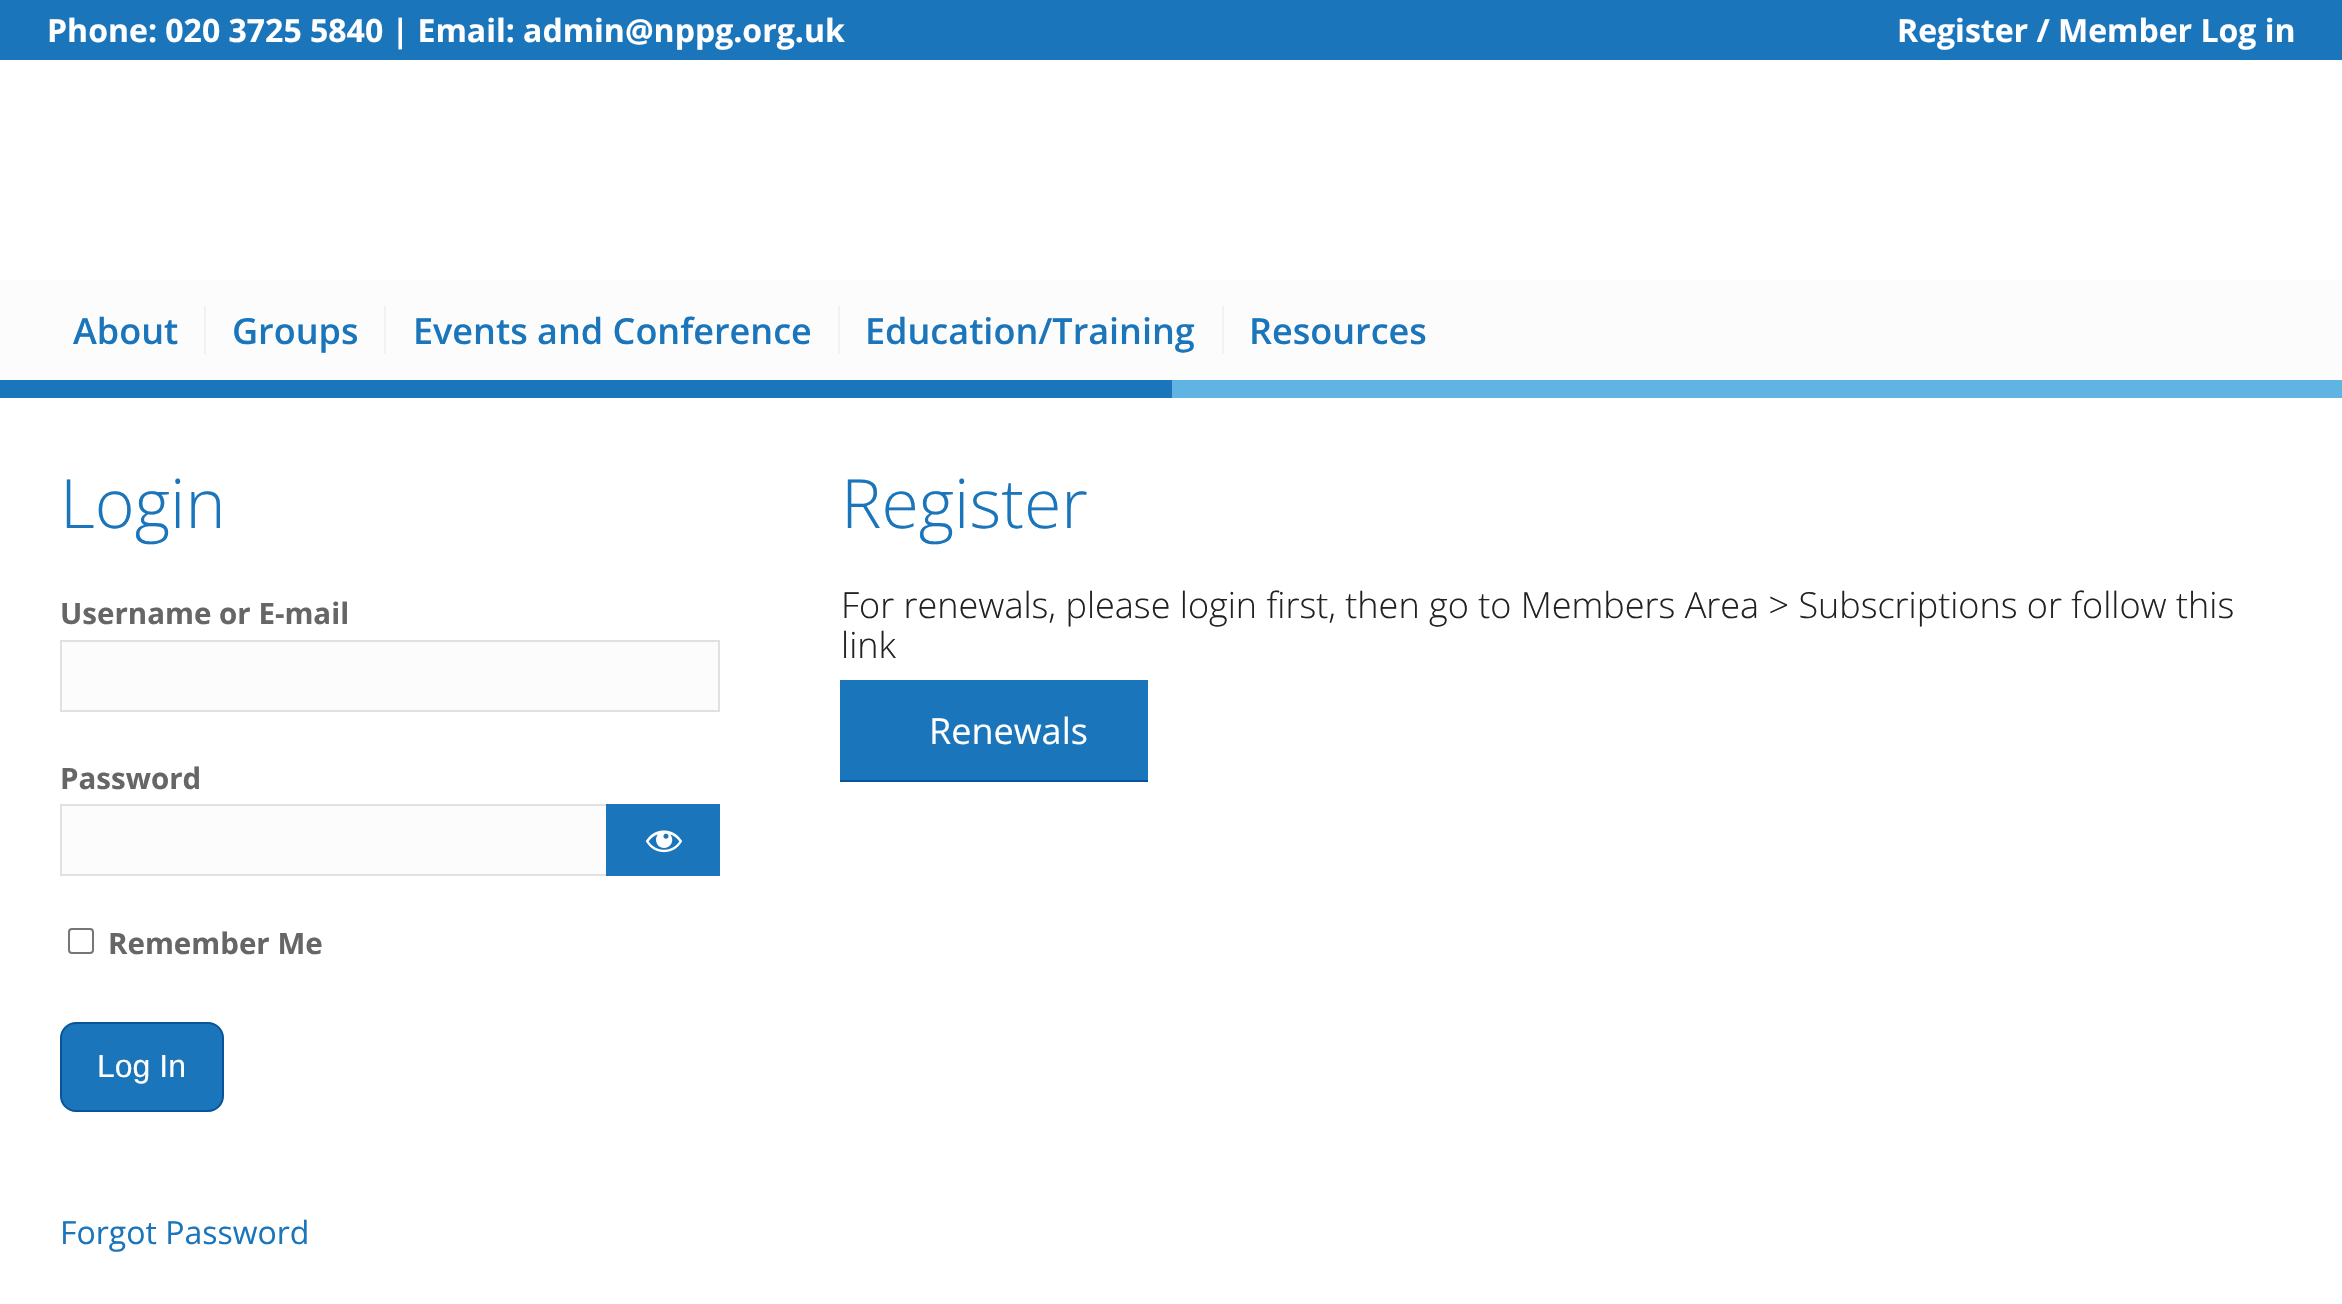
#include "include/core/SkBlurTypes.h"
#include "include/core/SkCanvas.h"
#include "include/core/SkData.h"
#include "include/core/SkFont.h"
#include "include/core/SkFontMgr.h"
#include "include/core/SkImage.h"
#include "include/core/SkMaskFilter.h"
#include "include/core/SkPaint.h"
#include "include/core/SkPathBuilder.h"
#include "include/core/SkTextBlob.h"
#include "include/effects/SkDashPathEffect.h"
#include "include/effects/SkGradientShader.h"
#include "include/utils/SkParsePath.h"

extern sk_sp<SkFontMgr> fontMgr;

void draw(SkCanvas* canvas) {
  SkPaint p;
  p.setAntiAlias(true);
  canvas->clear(SK_ColorWHITE);
  p.setColor(SkColorSetRGB(26, 117, 187));
  canvas->drawRect(SkRect::MakeLTRB(0, 0, 2342, 60), p);
  p.setColor(SkColorSetRGB(252, 252, 252));
  canvas->drawRect(SkRect::MakeLTRB(0, 280, 2342, 380), p);
  p.setColor(SkColorSetRGB(242, 242, 242));
  canvas->drawRect(SkRect::MakeLTRB(204, 306, 206, 354), p);
  canvas->drawRect(SkRect::MakeLTRB(384, 306, 386, 354), p);
  canvas->drawRect(SkRect::MakeLTRB(838, 306, 840, 354), p);
  canvas->drawRect(SkRect::MakeLTRB(1222, 306, 1224, 354), p);
  p.setColor(SkColorSetRGB(26, 117, 187));
  canvas->drawRect(SkRect::MakeLTRB(0, 380, 1172, 398), p);
  p.setColor(SkColorSetRGB(95, 180, 228));
  canvas->drawRect(SkRect::MakeLTRB(1172, 380, 2342, 398), p);
  p.setColor(SkColorSetRGB(252, 252, 252));
  canvas->drawRect(SkRect::MakeLTRB(61, 641, 719, 711), p);
  p.setStyle(SkPaint::kStroke_Style);
  p.setStrokeWidth(2);
  p.setColor(SkColorSetRGB(225, 225, 225));
  canvas->drawRect(SkRect::MakeLTRB(61, 641, 719, 711), p);
  p.setStyle(SkPaint::kFill_Style);
  p.setColor(SkColorSetRGB(252, 252, 252));
  canvas->drawRect(SkRect::MakeLTRB(62, 806, 606, 874), p);
  p.setStyle(SkPaint::kStroke_Style);
  p.setColor(SkColorSetRGB(225, 225, 225));
  canvas->drawRect(SkRect::MakeLTRB(61, 805, 719, 875), p);
  p.setStyle(SkPaint::kFill_Style);
  p.setColor(SkColorSetRGB(26, 117, 187));
  canvas->drawRect(SkRect::MakeLTRB(606, 804, 720, 876), p);
  canvas->drawImageRect(SkImages::DeferredFromEncodedData(SkData::MakeFromFileName("images/1.png")), SkRect::MakeLTRB(645, 830, 683, 853), SkSamplingOptions());
  p.setStyle(SkPaint::kStroke_Style);
  p.setColor(SkColorSetRGB(118, 118, 118));
  canvas->drawRoundRect(SkRect::MakeLTRB(69, 929, 93, 953), 3, 3, p);
  p.setStyle(SkPaint::kFill_Style);
  p.setColor(SkColorSetRGB(26, 117, 187));
  canvas->drawRoundRect(SkRect::MakeLTRB(61, 1023, 223, 1111), 15, 15, p);
  p.setStyle(SkPaint::kStroke_Style);
  p.setColor(SkColorSetRGB(8, 83, 153));
  canvas->drawRoundRect(SkRect::MakeLTRB(61, 1023, 223, 1111), 15, 15, p);
  p.setStyle(SkPaint::kFill_Style);
  p.setColor(SkColorSetRGB(26, 117, 187));
  canvas->drawRect(SkRect::MakeLTRB(840, 680, 1148, 780), p);
  p.setColor(SkColorSetRGB(8, 83, 153));
  canvas->drawRect(SkRect::MakeLTRB(840, 780, 1148, 782), p);
  SkFont font1(fontMgr->matchFamilyStyle("Open Sans", SkFontStyle::Bold()), 32);
  font1.setSubpixel(true);
  p.setColor(SK_ColorWHITE);
  canvas->drawString("Phone: 020 3725 5840 | Email: admin@nppg.org.uk", 47, 42, font1, p);
  canvas->drawString("Register / Member Log in", 1897, 42, font1, p);
  SkFont font2(fontMgr->matchFamilyStyle("Open Sans", SkFontStyle(600, SkFontStyle::kNormal_Width, SkFontStyle::kUpright_Slant)), 36);
  font2.setSubpixel(true);
  p.setColor(SkColorSetRGB(26, 117, 187));
  canvas->drawString("About", 73, 344, font2, p);
  canvas->drawString("Groups", 232, 344, font2, p);
  canvas->drawString("Events and Conference", 413, 344, font2, p);
  canvas->drawString("Education/Training", 865, 344, font2, p);
  canvas->drawString("Resources", 1249, 344, font2, p);
  SkFont font3(fontMgr->matchFamilyStyle("Open Sans", SkFontStyle(300, SkFontStyle::kNormal_Width, SkFontStyle::kUpright_Slant)), 68);
  font3.setSubpixel(true);
  canvas->drawString("Login", 60, 528, font3, p);
  SkFont font4(fontMgr->matchFamilyStyle("Open Sans", SkFontStyle::Bold()), 29.5f);
  font4.setSubpixel(true);
  p.setColor(SkColorSetRGB(102, 102, 102));
  canvas->drawString("Username or E-mail", 60, 624, font4, p);
  canvas->drawString("Password", 60, 789, font4, p);
  canvas->drawString("Remember Me", 108, 954, font4, p);
  SkFont font5(fontMgr->matchFamilyStyle("Liberation Sans", SkFontStyle::Normal()), 32);
  font5.setSubpixel(true);
  p.setColor(SK_ColorWHITE);
  canvas->drawString("Log In", 97, 1077, font5, p);
  SkFont font6(fontMgr->matchFamilyStyle("Open Sans", SkFontStyle::Normal()), 32);
  font6.setSubpixel(true);
  p.setColor(SkColorSetRGB(26, 117, 187));
  canvas->drawString("Forgot Password", 60, 1244, font6, p);
  canvas->drawString("Register", 841, 528, font3, p);
  SkFont font7(fontMgr->matchFamilyStyle("Open Sans", SkFontStyle(300, SkFontStyle::kNormal_Width, SkFontStyle::kUpright_Slant)), 36);
  font7.setSubpixel(true);
  p.setColor(SkColorSetRGB(34, 34, 34));
  canvas->drawString("For renewals, please login first, then go to Members Area > Subscriptions or follow this", 841, 618, font7, p);
  canvas->drawString("link", 841, 658, font7, p);
  SkFont font8(fontMgr->matchFamilyStyle("Open Sans", SkFontStyle::Normal()), 36);
  font8.setSubpixel(true);
  p.setColor(SK_ColorWHITE);
  canvas->drawString("Renewals", 929, 744, font8, p);
}
